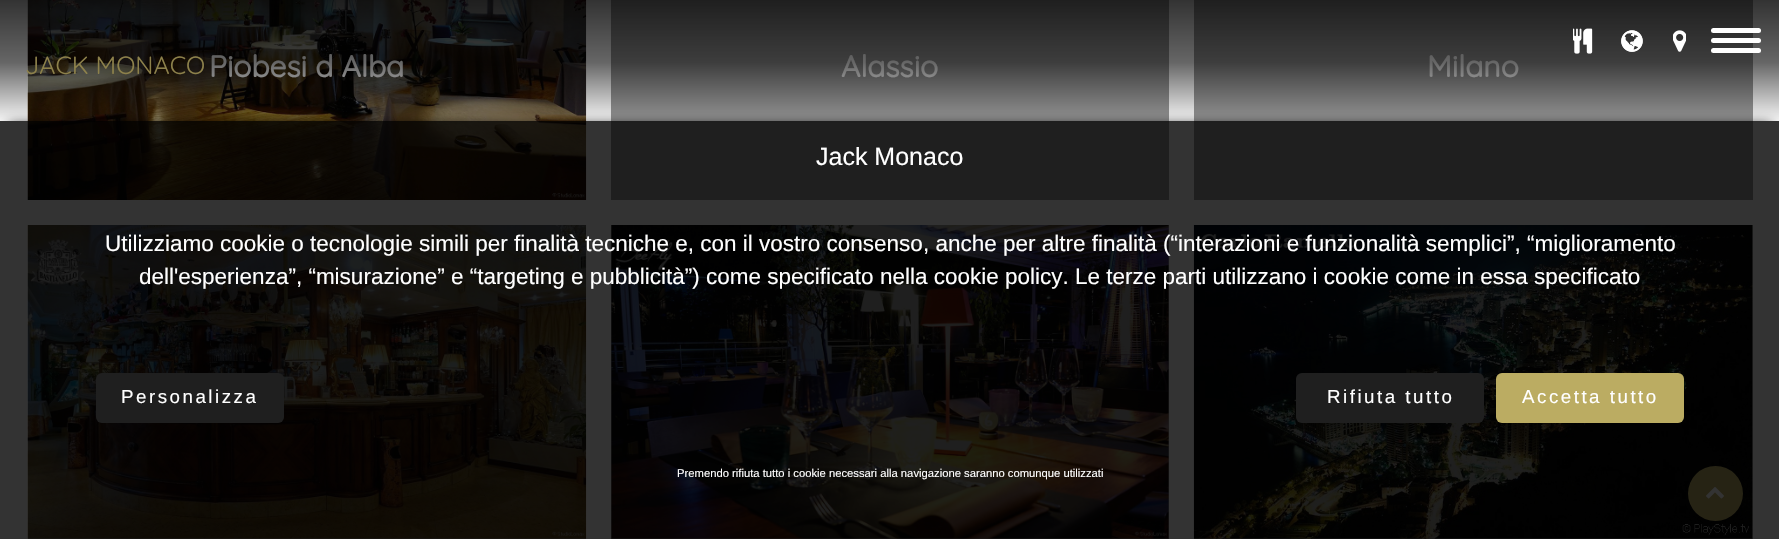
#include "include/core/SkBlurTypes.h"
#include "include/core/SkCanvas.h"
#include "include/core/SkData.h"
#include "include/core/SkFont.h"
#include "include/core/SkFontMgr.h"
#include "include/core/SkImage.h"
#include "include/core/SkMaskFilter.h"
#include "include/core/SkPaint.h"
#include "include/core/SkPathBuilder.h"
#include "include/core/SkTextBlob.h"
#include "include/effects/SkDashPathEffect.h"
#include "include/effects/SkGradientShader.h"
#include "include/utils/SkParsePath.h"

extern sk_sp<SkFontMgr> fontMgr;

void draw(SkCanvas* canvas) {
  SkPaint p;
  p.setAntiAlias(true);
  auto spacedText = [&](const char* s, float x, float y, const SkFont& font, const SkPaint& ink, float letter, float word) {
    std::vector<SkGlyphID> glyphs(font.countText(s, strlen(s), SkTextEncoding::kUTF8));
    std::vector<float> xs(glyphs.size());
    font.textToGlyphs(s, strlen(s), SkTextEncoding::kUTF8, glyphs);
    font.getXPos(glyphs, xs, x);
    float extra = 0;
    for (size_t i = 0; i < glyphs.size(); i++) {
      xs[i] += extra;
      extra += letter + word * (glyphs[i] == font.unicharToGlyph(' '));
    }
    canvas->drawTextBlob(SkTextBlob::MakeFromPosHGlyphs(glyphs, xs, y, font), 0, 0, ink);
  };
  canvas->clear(SK_ColorWHITE);
  p.setColor(SkColorSetRGB(153, 153, 153));
  canvas->drawRect(SkRect::MakeLTRB(1194, 225, 1753, 539), p);
  canvas->drawRect(SkRect::MakeLTRB(611, 225, 1169, 539), p);
  canvas->drawRect(SkRect::MakeLTRB(28, 538, 586, 539), p);
  canvas->drawImageRect(SkImages::DeferredFromEncodedData(SkData::MakeFromFileName("images/5.png")), SkRect::MakeLTRB(27, 0, 587, 200), SkSamplingOptions());
  canvas->drawRect(SkRect::MakeLTRB(611, 0, 1169, 200), p);
  canvas->drawRect(SkRect::MakeLTRB(1194, 0, 1753, 200), p);
  canvas->drawImageRect(SkImages::DeferredFromEncodedData(SkData::MakeFromFileName("images/6.png")), SkRect::MakeLTRB(27, 225, 587, 539), SkSamplingOptions());
  canvas->drawImageRect(SkImages::DeferredFromEncodedData(SkData::MakeFromFileName("images/7.png")), SkRect::MakeLTRB(611, 225, 1169, 539), SkSamplingOptions());
  canvas->drawImageRect(SkImages::DeferredFromEncodedData(SkData::MakeFromFileName("images/8.png")), SkRect::MakeLTRB(1193, 225, 1753, 539), SkSamplingOptions());
  p.setColor(SkColorSetRGB(187, 172, 98));
  canvas->drawCircle(1715.5f, 493.5f, 27.5f, p);
  canvas->drawImageRect(SkImages::DeferredFromEncodedData(SkData::MakeFromFileName("images/9.png")), SkRect::MakeLTRB(1706, 487, 1724, 499), SkSamplingOptions());
  SkFont font1(fontMgr->matchFamilyStyle("Quicksand", SkFontStyle::Bold()), 30);
  font1.setSubpixel(true);
  p.setColor(SK_ColorWHITE);
  canvas->drawString("Piobesi d Alba", 209, 77, font1, p);
  canvas->drawString("Alassio", 841, 77, font1, p);
  canvas->drawString("Milano", 1427, 77, font1, p);
  {
    const SkColor colors[] = {SkColorSetARGB(204, 0, 0, 0), SkColorSetARGB(153, 0, 0, 0), SkColorSetARGB(0, 0, 0, 0)};
    const float stops[] = {0, 0.5f, 1};
    const SkPoint ends[] = {{890, 0}, {890, 125}};
    p.setShader(SkGradientShader::MakeLinear(ends, colors, stops, 3, SkTileMode::kClamp));
    p.setAlpha(255);
  }
  canvas->drawRect(SkRect::MakeLTRB(0, 0, 1779, 123), p);
  p.setShader(nullptr);
  p.setColor(SK_ColorWHITE);
  canvas->drawRoundRect(SkRect::MakeLTRB(1711, 48, 1761, 53), 2.5f, 2.5f, p);
  canvas->drawRoundRect(SkRect::MakeLTRB(1711, 28, 1761, 33), 2.5f, 2.5f, p);
  canvas->drawRoundRect(SkRect::MakeLTRB(1711, 38, 1761, 43), 2.5f, 2.5f, p);
  canvas->drawImageRect(SkImages::DeferredFromEncodedData(SkData::MakeFromFileName("images/2.png")), SkRect::MakeLTRB(1621, 30, 1643, 52), SkSamplingOptions());
  canvas->drawImageRect(SkImages::DeferredFromEncodedData(SkData::MakeFromFileName("images/3.png")), SkRect::MakeLTRB(1621, 30, 1643, 52), SkSamplingOptions());
  canvas->drawImageRect(SkImages::DeferredFromEncodedData(SkData::MakeFromFileName("images/1.png")), SkRect::MakeLTRB(1573, 28, 1593, 54), SkSamplingOptions());
  canvas->drawImageRect(SkImages::DeferredFromEncodedData(SkData::MakeFromFileName("images/4.png")), SkRect::MakeLTRB(1673, 30, 1686, 52), SkSamplingOptions());
  SkFont font2(fontMgr->matchFamilyStyle("Quicksand", SkFontStyle(300, SkFontStyle::kNormal_Width, SkFontStyle::kUpright_Slant)), 25);
  font2.setSubpixel(true);
  p.setColor(SkColorSetRGB(141, 129, 75));
  canvas->drawString("JACK MONACO", 25, 74, font2, p);
  canvas->save();
  canvas->clipPath(SkPathBuilder(SkPathFillType::kEvenOdd).moveTo(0, 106).lineTo(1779, 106).lineTo(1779, 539).lineTo(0, 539).close().moveTo(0, 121).lineTo(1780, 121).lineTo(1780, 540).lineTo(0, 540).close().detach(), true);
  p.setColor(SK_ColorBLACK);
  p.setMaskFilter(SkMaskFilter::MakeBlur(kNormal_SkBlurStyle, 6));
  canvas->drawRect(SkRect::MakeLTRB(9, 125, 1771, 526), p);
  p.setMaskFilter(nullptr);
  canvas->restore();
  p.setColor(SkColorSetARGB(204, 0, 0, 0));
  canvas->drawRect(SkRect::MakeLTRB(0, 121, 1779, 539), p);
  SkFont font3(fontMgr->matchFamilyStyle("Liberation Sans", SkFontStyle::Normal()), 25);
  font3.setSubpixel(true);
  p.setColor(SK_ColorWHITE);
  canvas->drawString("Jack Monaco", 816, 165, font3, p);
  SkFont font4(fontMgr->matchFamilyStyle("Liberation Sans", SkFontStyle::Normal()), 22.5f);
  font4.setSubpixel(true);
  canvas->drawString("Utilizziamo cookie o tecnologie simili per finalità tecniche e, con il vostro consenso, anche per altre finalità (“interazioni e funzionalità semplici”, “miglioramento", 105, 251, font4, p);
  canvas->drawString("dell'esperienza”, “misurazione” e “targeting e pubblicità”) come specificato nella cookie policy. Le terze parti utilizzano i cookie come in essa specificato", 139, 284, font4, p);
  p.setColor(SkColorSetRGB(31, 31, 31));
  canvas->drawRoundRect(SkRect::MakeLTRB(96, 373, 284, 423), 6, 6, p);
  SkFont font5(fontMgr->matchFamilyStyle("Liberation Sans", SkFontStyle::Normal()), 18.75f);
  font5.setSubpixel(true);
  p.setColor(SK_ColorWHITE);
  spacedText("Personalizza", 121, 403, font5, p, 2.5f, 0);
  p.setColor(SkColorSetRGB(31, 31, 31));
  canvas->drawRoundRect(SkRect::MakeLTRB(1296, 373, 1484, 423), 6, 6, p);
  p.setColor(SK_ColorWHITE);
  spacedText("Rifiuta tutto", 1327, 403, font5, p, 2.5f, 0);
  p.setColor(SkColorSetRGB(187, 172, 98));
  canvas->drawRoundRect(SkRect::MakeLTRB(1496, 373, 1684, 423), 6, 6, p);
  p.setColor(SK_ColorWHITE);
  spacedText("Accetta tutto", 1522, 403, font5, p, 2.5f, 0);
  SkFont font6(fontMgr->matchFamilyStyle("Liberation Sans", SkFontStyle::Normal()), 11.25f);
  font6.setSubpixel(true);
  canvas->drawString("Premendo rifiuta tutto i cookie necessari alla navigazione saranno comunque utilizzati", 677, 477, font6, p);
}
